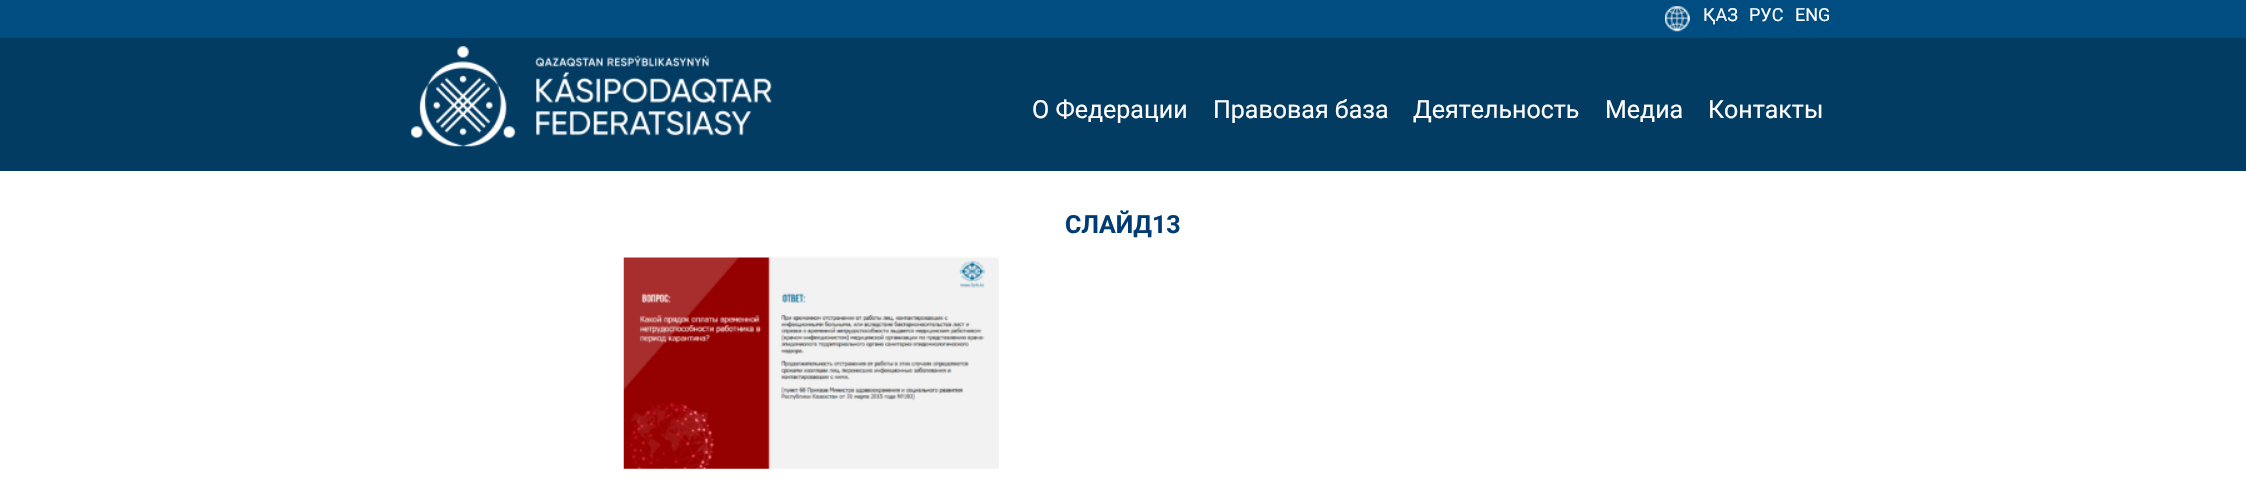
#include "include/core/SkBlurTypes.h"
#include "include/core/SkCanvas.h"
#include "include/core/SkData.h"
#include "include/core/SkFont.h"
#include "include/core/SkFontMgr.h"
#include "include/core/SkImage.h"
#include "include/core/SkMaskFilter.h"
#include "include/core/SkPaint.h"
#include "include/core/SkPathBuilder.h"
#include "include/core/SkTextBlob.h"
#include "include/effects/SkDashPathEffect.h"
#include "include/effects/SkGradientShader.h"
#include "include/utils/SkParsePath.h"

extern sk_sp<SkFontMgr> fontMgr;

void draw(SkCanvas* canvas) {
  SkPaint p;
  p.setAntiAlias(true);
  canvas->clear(SkColorSetRGB(3, 60, 99));
  p.setColor(SkColorSetRGB(0, 77, 129));
  canvas->drawRect(SkRect::MakeLTRB(0, 0, 2246, 38), p);
  canvas->drawImageRect(SkImages::DeferredFromEncodedData(SkData::MakeFromFileName("images/1.png")), SkRect::MakeLTRB(1665, 6, 1690, 32), SkSamplingOptions());
  canvas->drawImageRect(SkImages::DeferredFromEncodedData(SkData::MakeFromFileName("images/2.png")), SkRect::MakeLTRB(411, 46, 772, 147), SkSamplingOptions());
  p.setColor(SK_ColorWHITE);
  canvas->drawRect(SkRect::MakeLTRB(0, 171, 2246, 500), p);
  canvas->drawImageRect(SkImages::DeferredFromEncodedData(SkData::MakeFromFileName("images/3.png")), SkRect::MakeLTRB(623, 257, 999, 469), SkSamplingOptions());
  SkFont font1(fontMgr->matchFamilyStyle("Roboto", SkFontStyle::Normal()), 18);
  font1.setSubpixel(true);
  canvas->drawString("ҚАЗ", 1703, 21, font1, p);
  canvas->drawString("РУС", 1749, 21, font1, p);
  canvas->drawString("ENG", 1795, 21, font1, p);
  SkFont font2(fontMgr->matchFamilyStyle("Roboto", SkFontStyle::Normal()), 25);
  font2.setSubpixel(true);
  canvas->drawString("О Федерации", 1032, 118, font2, p);
  canvas->drawString("Правовая база", 1213, 118, font2, p);
  canvas->drawString("Деятельность", 1413, 118, font2, p);
  canvas->drawString("Медиа", 1605, 118, font2, p);
  canvas->drawString("Контакты", 1708, 118, font2, p);
  SkFont font3(fontMgr->matchFamilyStyle("Roboto", SkFontStyle::Bold()), 25);
  font3.setSubpixel(true);
  p.setColor(SkColorSetRGB(0, 59, 116));
  canvas->drawString("СЛАЙД13", 1065, 233, font3, p);
}
